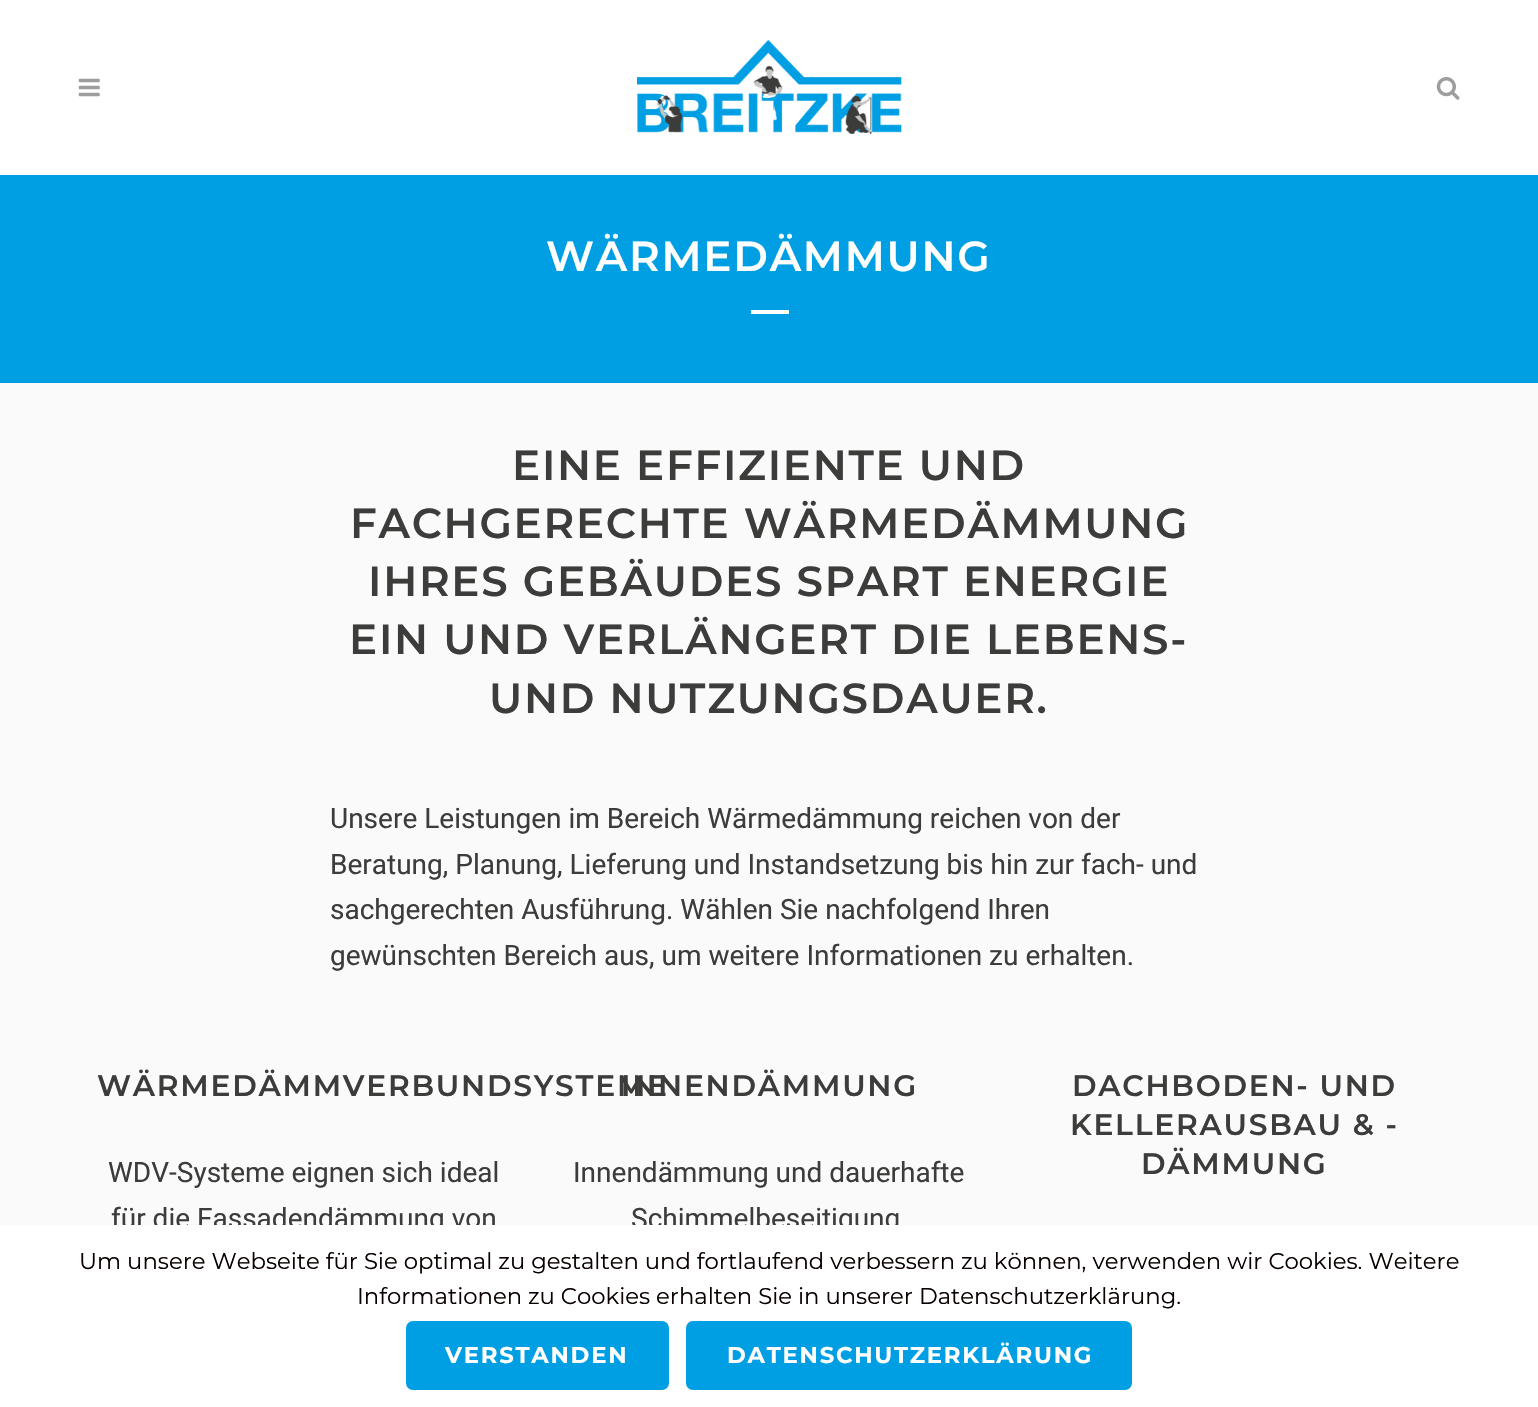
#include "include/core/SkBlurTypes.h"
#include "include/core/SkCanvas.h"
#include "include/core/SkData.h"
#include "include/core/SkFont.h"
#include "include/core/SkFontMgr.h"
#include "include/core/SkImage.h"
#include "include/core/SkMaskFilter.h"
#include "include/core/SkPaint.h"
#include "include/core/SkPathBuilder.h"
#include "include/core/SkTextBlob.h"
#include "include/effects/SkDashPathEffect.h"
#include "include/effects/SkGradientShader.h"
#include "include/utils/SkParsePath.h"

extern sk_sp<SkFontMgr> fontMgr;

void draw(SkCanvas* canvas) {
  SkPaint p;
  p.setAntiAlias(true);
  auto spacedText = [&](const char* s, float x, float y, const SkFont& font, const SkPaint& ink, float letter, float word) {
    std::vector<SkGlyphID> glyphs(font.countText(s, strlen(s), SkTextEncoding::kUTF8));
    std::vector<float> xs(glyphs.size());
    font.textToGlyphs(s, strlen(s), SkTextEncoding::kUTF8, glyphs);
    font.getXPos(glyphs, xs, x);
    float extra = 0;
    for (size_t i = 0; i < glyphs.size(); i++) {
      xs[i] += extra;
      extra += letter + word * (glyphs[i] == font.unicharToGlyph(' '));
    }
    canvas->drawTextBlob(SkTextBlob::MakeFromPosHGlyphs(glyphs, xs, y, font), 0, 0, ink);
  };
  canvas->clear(SkColorSetRGB(250, 250, 250));
  p.setColor(SK_ColorWHITE);
  canvas->drawRect(SkRect::MakeLTRB(0, 0, 1538, 175), p);
  canvas->drawImageRect(SkImages::DeferredFromEncodedData(SkData::MakeFromFileName("images/1.png")), SkRect::MakeLTRB(78, 78, 100, 97), SkSamplingOptions());
  canvas->drawImageRect(SkImages::DeferredFromEncodedData(SkData::MakeFromFileName("images/2.png")), SkRect::MakeLTRB(637, 40, 902, 134), SkSamplingOptions());
  canvas->drawImageRect(SkImages::DeferredFromEncodedData(SkData::MakeFromFileName("images/3.png")), SkRect::MakeLTRB(1436, 77, 1460, 100), SkSamplingOptions());
  p.setColor(SkColorSetRGB(0, 158, 227));
  canvas->drawRect(SkRect::MakeLTRB(0, 175, 1538, 383), p);
  p.setColor(SK_ColorWHITE);
  canvas->drawRect(SkRect::MakeLTRB(751, 310, 789, 314), p);
  SkFont font1(fontMgr->matchFamilyStyle("Montserrat", SkFontStyle(600, SkFontStyle::kNormal_Width, SkFontStyle::kUpright_Slant)), 42);
  font1.setSubpixel(true);
  spacedText("WÄRMEDÄMMUNG", 546, 271, font1, p, 1.75f, 0);
  p.setColor(SkColorSetRGB(60, 60, 59));
  spacedText("EINE EFFIZIENTE UND", 512, 480, font1, p, 1.75f, 0);
  spacedText("FACHGERECHTE WÄRMEDÄMMUNG", 350, 538, font1, p, 1.75f, 0);
  spacedText("IHRES GEBÄUDES SPART ENERGIE", 368, 596, font1, p, 1.75f, 0);
  spacedText("EIN UND VERLÄNGERT DIE LEBENS-", 349, 654, font1, p, 1.75f, 0);
  spacedText("UND NUTZUNGSDAUER.", 489, 713, font1, p, 1.75f, 0);
  SkFont font2(fontMgr->matchFamilyStyle("Roboto", SkFontStyle::Normal()), 28);
  font2.setSubpixel(true);
  canvas->drawString("Unsere Leistungen im Bereich Wärmedämmung reichen von der", 330, 828, font2, p);
  canvas->drawString("Beratung, Planung, Lieferung und Instandsetzung bis hin zur fach- und", 330, 874, font2, p);
  canvas->drawString("sachgerechten Ausführung. Wählen Sie nachfolgend Ihren", 330, 919, font2, p);
  canvas->drawString("gewünschten Bereich aus, um weitere Informationen zu erhalten.", 330, 965, font2, p);
  SkFont font3(fontMgr->matchFamilyStyle("Montserrat", SkFontStyle(600, SkFontStyle::kNormal_Width, SkFontStyle::kUpright_Slant)), 29.75f);
  font3.setSubpixel(true);
  spacedText("WÄRMEDÄMMVERBUNDSYSTEME", 97, 1096, font3, p, 1.75f, 0);
  canvas->drawString("WDV-Systeme eignen sich ideal", 108, 1182, font2, p);
  canvas->drawString("für die Fassadendämmung von", 111, 1228, font2, p);
  spacedText("INNENDÄMMUNG", 621, 1096, font3, p, 1.75f, 0);
  canvas->drawString("Innendämmung und dauerhafte", 573, 1182, font2, p);
  canvas->drawString("Schimmelbeseitigung", 631, 1228, font2, p);
  spacedText("DACHBODEN- UND", 1072, 1096, font3, p, 1.75f, 0);
  spacedText("KELLERAUSBAU & -", 1070, 1135, font3, p, 1.75f, 0);
  spacedText("DÄMMUNG", 1141, 1174, font3, p, 1.75f, 0);
  p.setColor(SK_ColorWHITE);
  canvas->drawRect(SkRect::MakeLTRB(0, 1225, 1538, 1407), p);
  SkFont font4(fontMgr->matchFamilyStyle("Montserrat", SkFontStyle::Normal()), 22.75f);
  font4.setSubpixel(true);
  p.setColor(SkColorSetRGB(10, 0, 0));
  canvas->drawString("Um unsere Webseite für Sie optimal zu gestalten und fortlaufend verbessern zu können, verwenden wir Cookies. Weitere", 79, 1269, font4, p);
  canvas->drawString("Informationen zu Cookies erhalten Sie in unserer Datenschutzerklärung.", 357, 1304, font4, p);
  p.setColor(SkColorSetRGB(0, 158, 227));
  canvas->drawRoundRect(SkRect::MakeLTRB(406, 1321, 669, 1390), 7, 7, p);
  SkFont font5(fontMgr->matchFamilyStyle("Montserrat", SkFontStyle::Bold()), 22.75f);
  font5.setSubpixel(true);
  p.setColor(SK_ColorWHITE);
  spacedText("VERSTANDEN", 445, 1363, font5, p, 1.75f, 0);
  p.setColor(SkColorSetRGB(0, 158, 227));
  canvas->drawRoundRect(SkRect::MakeLTRB(686, 1321, 1132, 1390), 7, 7, p);
  p.setColor(SK_ColorWHITE);
  spacedText("DATENSCHUTZERKLÄRUNG", 727, 1363, font5, p, 1.75f, 0);
}
